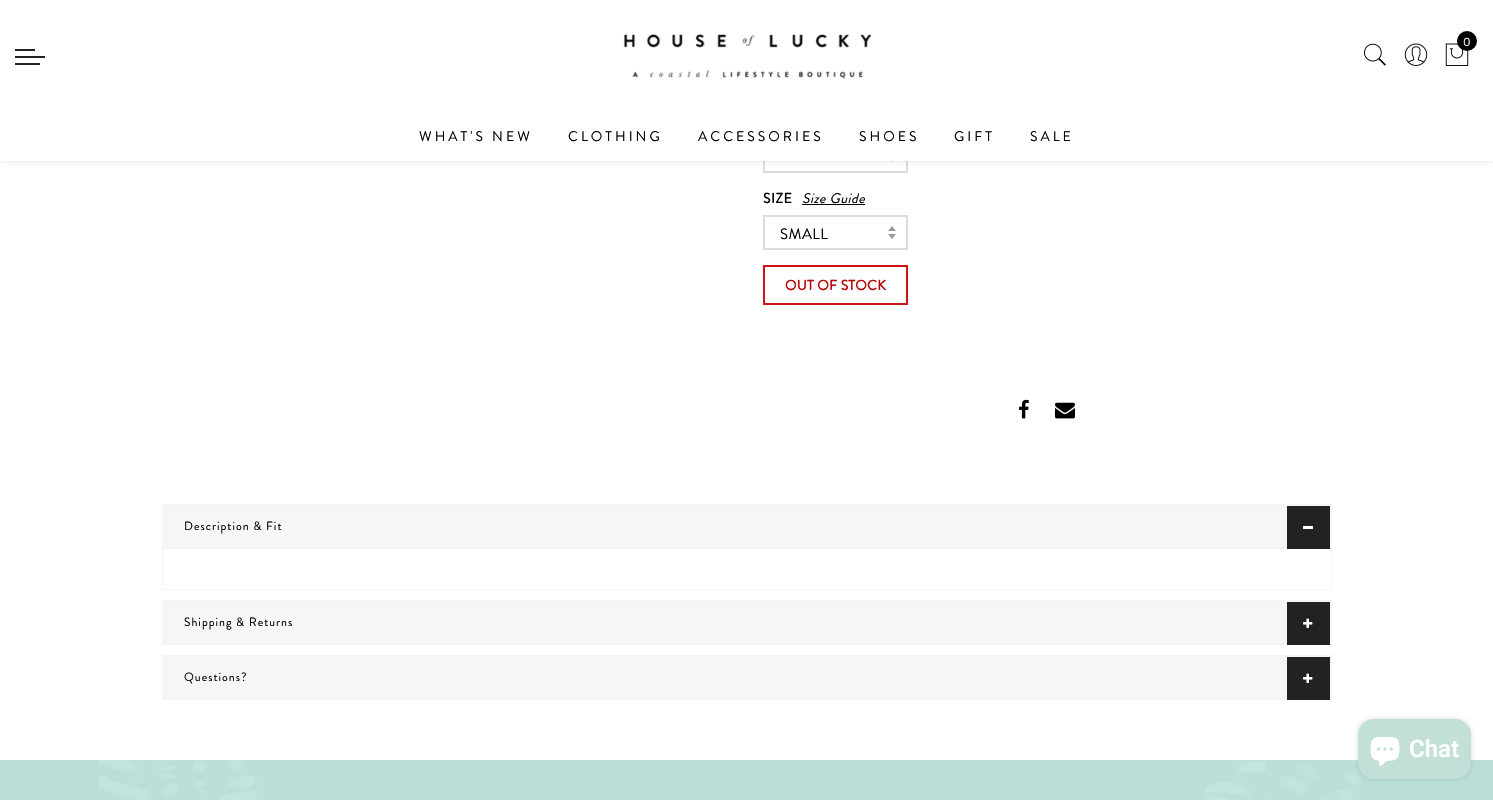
#include "include/core/SkBlurTypes.h"
#include "include/core/SkCanvas.h"
#include "include/core/SkData.h"
#include "include/core/SkFont.h"
#include "include/core/SkFontMgr.h"
#include "include/core/SkImage.h"
#include "include/core/SkMaskFilter.h"
#include "include/core/SkPaint.h"
#include "include/core/SkPathBuilder.h"
#include "include/core/SkTextBlob.h"
#include "include/effects/SkDashPathEffect.h"
#include "include/effects/SkGradientShader.h"
#include "include/utils/SkParsePath.h"

extern sk_sp<SkFontMgr> fontMgr;

void draw(SkCanvas* canvas) {
  SkPaint p;
  p.setAntiAlias(true);
  auto spacedText = [&](const char* s, float x, float y, const SkFont& font, const SkPaint& ink, float letter, float word) {
    std::vector<SkGlyphID> glyphs(font.countText(s, strlen(s), SkTextEncoding::kUTF8));
    std::vector<float> xs(glyphs.size());
    font.textToGlyphs(s, strlen(s), SkTextEncoding::kUTF8, glyphs);
    font.getXPos(glyphs, xs, x);
    float extra = 0;
    for (size_t i = 0; i < glyphs.size(); i++) {
      xs[i] += extra;
      extra += letter + word * (glyphs[i] == font.unicharToGlyph(' '));
    }
    canvas->drawTextBlob(SkTextBlob::MakeFromPosHGlyphs(glyphs, xs, y, font), 0, 0, ink);
  };
  canvas->clear(SK_ColorWHITE);
  canvas->drawImageRect(SkImages::DeferredFromEncodedData(SkData::MakeFromFileName("images/5.png")), SkRect::MakeLTRB(891, 161, 893, 162), SkSamplingOptions());
  p.setStyle(SkPaint::kStroke_Style);
  p.setStrokeWidth(2);
  p.setColor(SkColorSetRGB(220, 220, 220));
  canvas->drawRect(SkRect::MakeLTRB(764, 139, 907, 172), p);
  p.setStyle(SkPaint::kFill_Style);
  p.setColor(SkColorSetARGB(31, 0, 0, 0));
  p.setMaskFilter(SkMaskFilter::MakeBlur(kNormal_SkBlurStyle, 2.5f));
  canvas->drawRect(SkRect::MakeLTRB(0, 0, 1493, 161), p);
  p.setMaskFilter(nullptr);
  p.setColor(SK_ColorWHITE);
  canvas->drawRect(SkRect::MakeLTRB(0, 0, 1493, 161), p);
  canvas->drawImageRect(SkImages::DeferredFromEncodedData(SkData::MakeFromFileName("images/1.png")), SkRect::MakeLTRB(623, 34, 872, 79), SkSamplingOptions());
  canvas->drawImageRect(SkImages::DeferredFromEncodedData(SkData::MakeFromFileName("images/2.png")), SkRect::MakeLTRB(1445, 43, 1469, 66), SkSamplingOptions());
  p.setColor(SK_ColorBLACK);
  canvas->drawCircle(1467, 41, 10, p);
  canvas->drawImageRect(SkImages::DeferredFromEncodedData(SkData::MakeFromFileName("images/3.png")), SkRect::MakeLTRB(1364, 43, 1386, 66), SkSamplingOptions());
  canvas->drawImageRect(SkImages::DeferredFromEncodedData(SkData::MakeFromFileName("images/4.png")), SkRect::MakeLTRB(1404, 43, 1428, 66), SkSamplingOptions());
  p.setColor(SkColorSetRGB(34, 34, 34));
  canvas->drawRect(SkRect::MakeLTRB(15, 49, 35, 51), p);
  canvas->drawRect(SkRect::MakeLTRB(15, 56, 45, 58), p);
  canvas->drawRect(SkRect::MakeLTRB(15, 63, 40, 65), p);
  p.setColor(SK_ColorBLACK);
  canvas->drawRect(SkRect::MakeLTRB(802, 204, 865, 205), p);
  canvas->drawImageRect(SkImages::DeferredFromEncodedData(SkData::MakeFromFileName("images/6.png")), SkRect::MakeLTRB(888, 226, 896, 239), SkSamplingOptions());
  p.setStyle(SkPaint::kStroke_Style);
  p.setColor(SkColorSetRGB(220, 220, 220));
  canvas->drawRect(SkRect::MakeLTRB(764, 216, 907, 249), p);
  p.setColor(SkColorSetRGB(204, 20, 20));
  canvas->drawRect(SkRect::MakeLTRB(764, 266, 907, 304), p);
  canvas->drawImageRect(SkImages::DeferredFromEncodedData(SkData::MakeFromFileName("images/7.png")), SkRect::MakeLTRB(1019, 399, 1029, 419), SkSamplingOptions());
  canvas->drawImageRect(SkImages::DeferredFromEncodedData(SkData::MakeFromFileName("images/8.png")), SkRect::MakeLTRB(1055, 402, 1075, 419), SkSamplingOptions());
  p.setStyle(SkPaint::kFill_Style);
  p.setColor(SkColorSetRGB(246, 246, 248));
  canvas->drawRect(SkRect::MakeLTRB(164, 506, 1287, 547), p);
  p.setStyle(SkPaint::kStroke_Style);
  p.setColor(SkColorSetRGB(245, 245, 245));
  canvas->drawRect(SkRect::MakeLTRB(163, 505, 1331, 548), p);
  p.setStyle(SkPaint::kFill_Style);
  p.setColor(SkColorSetRGB(34, 34, 34));
  canvas->drawRect(SkRect::MakeLTRB(1287, 506, 1330, 549), p);
  p.setColor(SK_ColorWHITE);
  canvas->drawRect(SkRect::MakeLTRB(1303, 526, 1313, 529), p);
  p.setColor(SkColorSetRGB(245, 245, 245));
  canvas->drawRect(SkRect::MakeLTRB(1331, 549, 1332, 590), p);
  canvas->drawRect(SkRect::MakeLTRB(162, 589, 1332, 590), p);
  canvas->drawRect(SkRect::MakeLTRB(162, 549, 163, 590), p);
  p.setColor(SkColorSetRGB(246, 246, 248));
  canvas->drawRect(SkRect::MakeLTRB(164, 602, 1287, 643), p);
  p.setStyle(SkPaint::kStroke_Style);
  p.setColor(SkColorSetRGB(245, 245, 245));
  canvas->drawRect(SkRect::MakeLTRB(163, 601, 1331, 644), p);
  p.setStyle(SkPaint::kFill_Style);
  p.setColor(SkColorSetRGB(34, 34, 34));
  canvas->drawRect(SkRect::MakeLTRB(1287, 602, 1330, 645), p);
  canvas->drawImageRect(SkImages::DeferredFromEncodedData(SkData::MakeFromFileName("images/9.png")), SkRect::MakeLTRB(1303, 618, 1313, 628), SkSamplingOptions());
  p.setColor(SkColorSetRGB(246, 246, 248));
  canvas->drawRect(SkRect::MakeLTRB(164, 657, 1287, 698), p);
  p.setStyle(SkPaint::kStroke_Style);
  p.setColor(SkColorSetRGB(245, 245, 245));
  canvas->drawRect(SkRect::MakeLTRB(163, 656, 1331, 699), p);
  p.setStyle(SkPaint::kFill_Style);
  p.setColor(SkColorSetRGB(34, 34, 34));
  canvas->drawRect(SkRect::MakeLTRB(1287, 657, 1330, 700), p);
  canvas->drawImageRect(SkImages::DeferredFromEncodedData(SkData::MakeFromFileName("images/9.png")), SkRect::MakeLTRB(1303, 673, 1313, 683), SkSamplingOptions());
  p.setColor(SkColorSetRGB(187, 223, 216));
  canvas->drawRect(SkRect::MakeLTRB(0, 760, 1493, 800), p);
  canvas->drawImageRect(SkImages::DeferredFromEncodedData(SkData::MakeFromFileName("images/10.png")), SkRect::MakeLTRB(99, 760, 1366, 800), SkSamplingOptions());
  p.setColor(SkColorSetARGB(38, 0, 0, 0));
  p.setMaskFilter(SkMaskFilter::MakeBlur(kNormal_SkBlurStyle, 2.5f));
  canvas->drawRoundRect(SkRect::MakeLTRB(1358, 719, 1471, 779), 16, 16, p);
  p.setMaskFilter(nullptr);
  p.setColor(SkColorSetRGB(194, 223, 216));
  canvas->drawRoundRect(SkRect::MakeLTRB(1358, 719, 1471, 779), 16, 16, p);
  canvas->drawImageRect(SkImages::DeferredFromEncodedData(SkData::MakeFromFileName("images/11.png")), SkRect::MakeLTRB(1370, 737, 1400, 766), SkSamplingOptions());
  SkFont font1(fontMgr->matchFamilyStyle("Brandon Grotesque", SkFontStyle::Normal()), 12);
  font1.setSubpixel(true);
  p.setColor(SK_ColorWHITE);
  spacedText("0", 1463, 46, font1, p, 1, 0);
  SkFont font2(fontMgr->matchFamilyStyle("Brandon Grotesque", SkFontStyle::Normal()), 14);
  font2.setSubpixel(true);
  p.setColor(SK_ColorBLACK);
  spacedText("WHAT'S NEW", 419, 141, font2, p, 3, 0);
  spacedText("CLOTHING", 568, 141, font2, p, 3, 0);
  spacedText("ACCESSORIES", 698, 141, font2, p, 3, 0);
  spacedText("SHOES", 859, 141, font2, p, 3, 0);
  spacedText("GIFT", 954, 141, font2, p, 3, 0);
  spacedText("SALE", 1030, 141, font2, p, 3, 0);
  SkFont font3(fontMgr->matchFamilyStyle("Brandon Grotesque", SkFontStyle::Bold()), 14);
  font3.setSubpixel(true);
  spacedText("SIZE", 763, 203, font3, p, 0.5f, 0);
  SkFont font4(fontMgr->matchFamilyStyle("Brandon Grotesque", SkFontStyle::Italic()), 14);
  font4.setSubpixel(true);
  spacedText("Size Guide", 802, 203, font4, p, 0.5f, 0);
  SkFont font5(fontMgr->matchFamilyStyle("Brandon Grotesque", SkFontStyle::Normal()), 15);
  font5.setSubpixel(true);
  spacedText("SMALL", 780, 239, font5, p, 0.5f, 0);
  p.setColor(SkColorSetRGB(181, 8, 8));
  spacedText("OUT OF STOCK", 785, 290, font3, p, 0.25f, 0);
  p.setColor(SK_ColorBLACK);
  spacedText("Description & Fit", 184, 530, font1, p, 1, 0);
  spacedText("Shipping & Returns", 184, 626, font1, p, 1, 0);
  spacedText("Questions?", 184, 681, font1, p, 1, 0);
  SkFont font6(fontMgr->matchFamilyStyle("Roboto", SkFontStyle(600, SkFontStyle::kNormal_Width, SkFontStyle::kUpright_Slant)), 24);
  font6.setSubpixel(true);
  p.setColor(SK_ColorWHITE);
  canvas->drawString("Chat", 1409, 757, font6, p);
}
